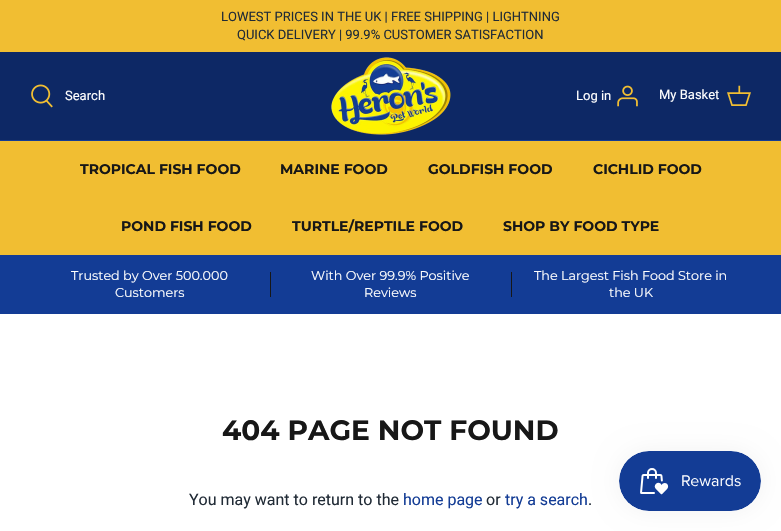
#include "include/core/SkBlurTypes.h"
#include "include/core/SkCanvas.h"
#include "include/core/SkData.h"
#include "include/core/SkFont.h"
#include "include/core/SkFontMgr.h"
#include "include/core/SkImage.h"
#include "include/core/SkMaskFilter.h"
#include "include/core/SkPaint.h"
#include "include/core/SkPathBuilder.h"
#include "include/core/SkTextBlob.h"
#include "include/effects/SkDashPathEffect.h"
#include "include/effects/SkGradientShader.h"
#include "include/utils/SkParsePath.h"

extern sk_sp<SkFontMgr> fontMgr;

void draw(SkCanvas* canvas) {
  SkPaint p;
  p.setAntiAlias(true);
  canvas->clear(SK_ColorWHITE);
  p.setColor(SkColorSetRGB(241, 190, 50));
  canvas->drawRect(SkRect::MakeLTRB(0, 0, 781, 52), p);
  p.setColor(SkColorSetRGB(13, 40, 101));
  canvas->drawRect(SkRect::MakeLTRB(0, 52, 781, 140), p);
  p.setColor(SkColorSetRGB(19, 60, 149));
  canvas->drawRect(SkRect::MakeLTRB(0, 140, 781, 141), p);
  canvas->drawImageRect(SkImages::DeferredFromEncodedData(SkData::MakeFromFileName("images/1.png")), SkRect::MakeLTRB(31, 84, 53, 108), SkSamplingOptions());
  canvas->drawImageRect(SkImages::DeferredFromEncodedData(SkData::MakeFromFileName("images/2.png")), SkRect::MakeLTRB(331, 57, 451, 135), SkSamplingOptions());
  canvas->drawImageRect(SkImages::DeferredFromEncodedData(SkData::MakeFromFileName("images/3.png")), SkRect::MakeLTRB(617, 85, 638, 107), SkSamplingOptions());
  canvas->drawImageRect(SkImages::DeferredFromEncodedData(SkData::MakeFromFileName("images/4.png")), SkRect::MakeLTRB(727, 85, 751, 106), SkSamplingOptions());
  p.setColor(SkColorSetRGB(241, 190, 50));
  canvas->drawRect(SkRect::MakeLTRB(0, 141, 781, 255), p);
  p.setColor(SkColorSetRGB(19, 60, 149));
  canvas->drawRect(SkRect::MakeLTRB(0, 255, 781, 314), p);
  p.setColor(SkColorSetRGB(23, 23, 23));
  canvas->drawRect(SkRect::MakeLTRB(270, 272, 271, 297), p);
  canvas->drawRect(SkRect::MakeLTRB(511, 272, 512, 297), p);
  p.setColor(SkColorSetARGB(13, 0, 0, 0));
  p.setMaskFilter(SkMaskFilter::MakeBlur(kNormal_SkBlurStyle, 12.5f));
  canvas->drawRoundRect(SkRect::MakeLTRB(619, 451, 761, 511), 30, 30, p);
  p.setMaskFilter(nullptr);
  canvas->drawImageRect(SkImages::DeferredFromEncodedData(SkData::MakeFromFileName("images/5.png")), SkRect::MakeLTRB(619, 451, 761, 511), SkSamplingOptions());
  SkFont font1(fontMgr->matchFamilyStyle("Roboto", SkFontStyle::Normal()), 13);
  font1.setSubpixel(true);
  p.setColor(SkColorSetRGB(33, 43, 54));
  canvas->drawString("LOWEST PRICES IN THE UK | FREE SHIPPING | LIGHTNING", 221, 21, font1, p);
  canvas->drawString("QUICK DELIVERY | 99.9% CUSTOMER SATISFACTION", 237, 39, font1, p);
  p.setColor(SK_ColorWHITE);
  canvas->drawString("Search", 65, 100, font1, p);
  canvas->drawString("Log in", 576, 100, font1, p);
  canvas->drawString("My Basket", 659, 99, font1, p);
  SkFont font2(fontMgr->matchFamilyStyle("Montserrat", SkFontStyle::Bold()), 14);
  font2.setSubpixel(true);
  p.setColor(SkColorSetRGB(23, 23, 23));
  canvas->drawString("TROPICAL FISH FOOD", 80, 174, font2, p);
  canvas->drawString("MARINE FOOD", 280, 174, font2, p);
  canvas->drawString("GOLDFISH FOOD", 428, 174, font2, p);
  canvas->drawString("CICHLID FOOD", 593, 174, font2, p);
  canvas->drawString("POND FISH FOOD", 121, 231, font2, p);
  canvas->drawString("TURTLE/REPTILE FOOD", 292, 231, font2, p);
  canvas->drawString("SHOP BY FOOD TYPE", 503, 231, font2, p);
  SkFont font3(fontMgr->matchFamilyStyle("Montserrat", SkFontStyle::Normal()), 12.75f);
  font3.setSubpixel(true);
  p.setColor(SK_ColorWHITE);
  canvas->drawString("Trusted by Over 500.000", 71, 280, font3, p);
  canvas->drawString("Customers", 115, 297, font3, p);
  canvas->drawString("With Over 99.9% Positive", 311, 280, font3, p);
  canvas->drawString("Reviews", 364, 297, font3, p);
  canvas->drawString("The Largest Fish Food Store in", 534, 280, font3, p);
  canvas->drawString("the UK", 609, 297, font3, p);
  SkFont font4(fontMgr->matchFamilyStyle("Montserrat", SkFontStyle::Bold()), 28);
  font4.setSubpixel(true);
  p.setColor(SkColorSetRGB(23, 23, 23));
  canvas->drawString("404 PAGE NOT FOUND", 222, 440, font4, p);
  SkFont font5(fontMgr->matchFamilyStyle("Roboto", SkFontStyle::Normal()), 16);
  font5.setSubpixel(true);
  p.setColor(SkColorSetRGB(33, 43, 54));
  canvas->drawString("You may want to return to the", 189, 505, font5, p);
  p.setColor(SkColorSetRGB(19, 60, 149));
  canvas->drawString("home page", 403, 505, font5, p);
  p.setColor(SkColorSetRGB(33, 43, 54));
  canvas->drawString("or", 486, 505, font5, p);
  p.setColor(SkColorSetRGB(19, 60, 149));
  canvas->drawString("try a search", 505, 505, font5, p);
  p.setColor(SkColorSetRGB(33, 43, 54));
  canvas->drawString(".", 588, 505, font5, p);
}
